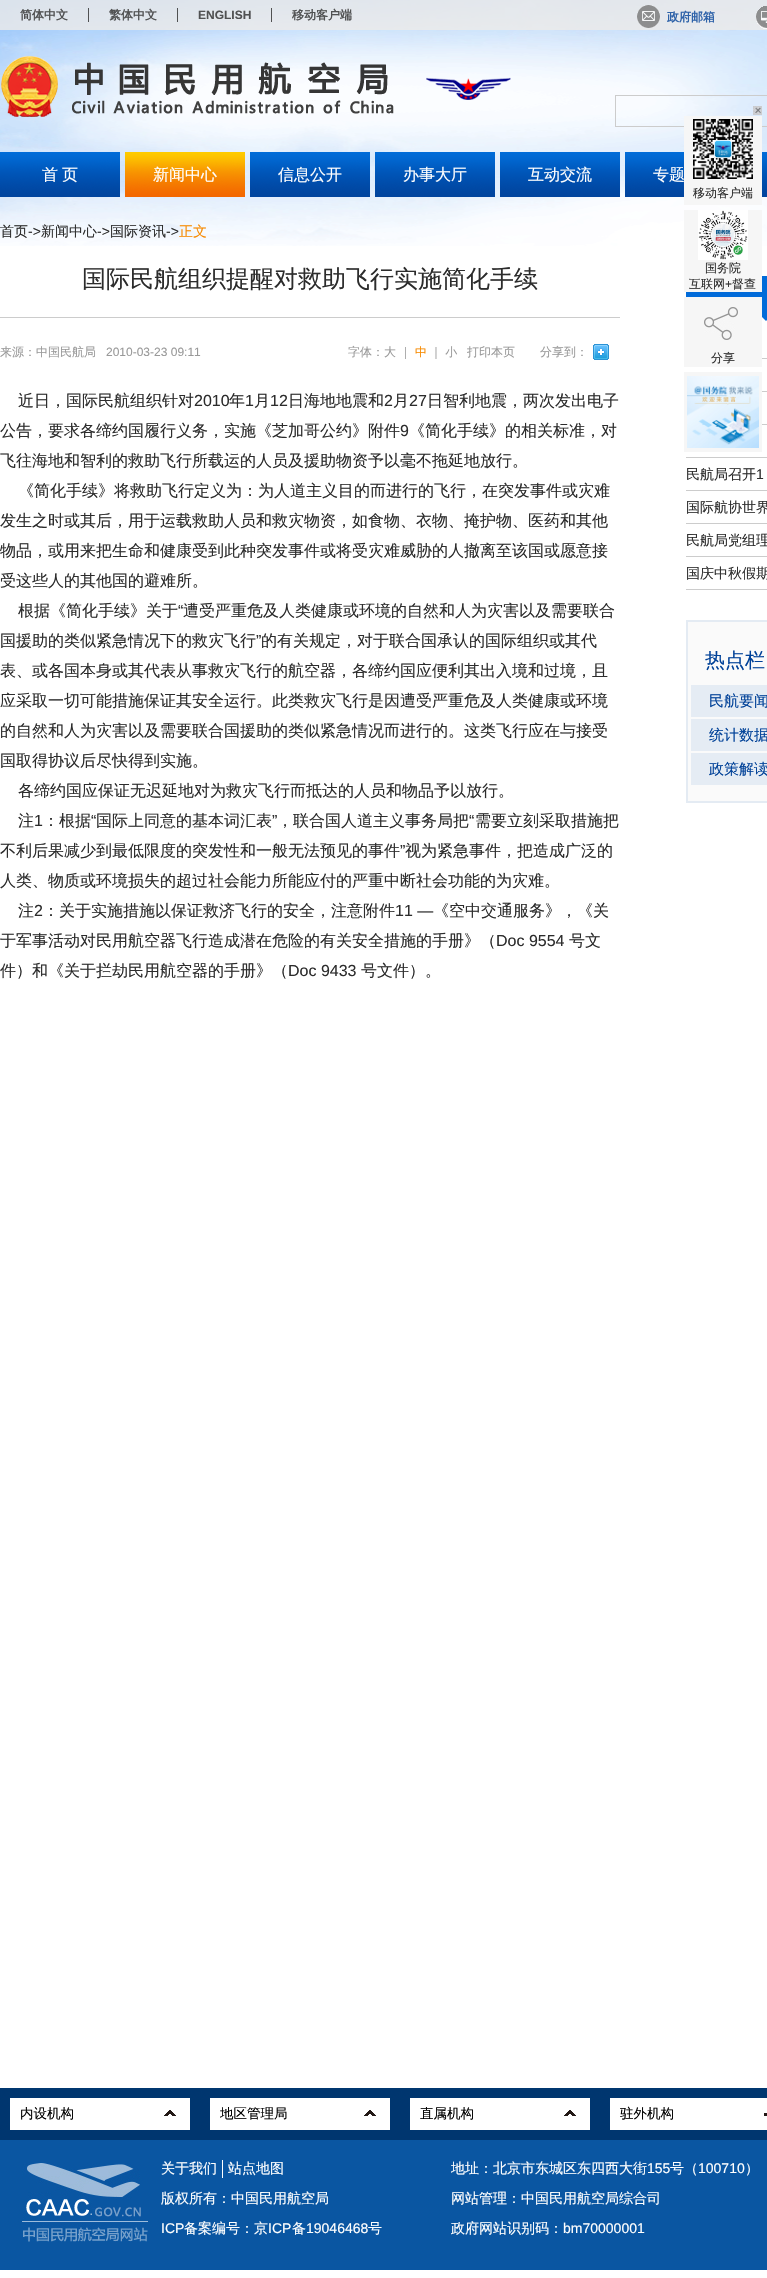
#include "include/core/SkBlurTypes.h"
#include "include/core/SkCanvas.h"
#include "include/core/SkData.h"
#include "include/core/SkFont.h"
#include "include/core/SkFontMgr.h"
#include "include/core/SkImage.h"
#include "include/core/SkMaskFilter.h"
#include "include/core/SkPaint.h"
#include "include/core/SkPathBuilder.h"
#include "include/core/SkTextBlob.h"
#include "include/effects/SkDashPathEffect.h"
#include "include/effects/SkGradientShader.h"
#include "include/utils/SkParsePath.h"

extern sk_sp<SkFontMgr> fontMgr;

void draw(SkCanvas* canvas) {
  SkPaint p;
  p.setAntiAlias(true);
  canvas->clear(SK_ColorWHITE);
  canvas->drawImageRect(SkImages::DeferredFromEncodedData(SkData::MakeFromFileName("images/1.png")), SkRect::MakeLTRB(0, 0, 767, 246), SkSamplingOptions());
  p.setColor(SkColorSetARGB(204, 237, 235, 233));
  canvas->drawRect(SkRect::MakeLTRB(0, 0, 767, 30), p);
  p.setColor(SkColorSetRGB(80, 81, 83));
  canvas->drawRect(SkRect::MakeLTRB(88, 8, 89, 22), p);
  p.setColor(SkColorSetARGB(204, 44, 44, 44));
  canvas->drawRect(SkRect::MakeLTRB(177, 8, 178, 22), p);
  canvas->drawRect(SkRect::MakeLTRB(271, 8, 272, 22), p);
  canvas->drawImageRect(SkImages::DeferredFromEncodedData(SkData::MakeFromFileName("images/2.png")), SkRect::MakeLTRB(637, 5, 660, 28), SkSamplingOptions());
  canvas->drawImageRect(SkImages::DeferredFromEncodedData(SkData::MakeFromFileName("images/3.png")), SkRect::MakeLTRB(756, 6, 767, 29), SkSamplingOptions());
  canvas->drawImageRect(SkImages::DeferredFromEncodedData(SkData::MakeFromFileName("images/4.png")), SkRect::MakeLTRB(1, 56, 511, 117), SkSamplingOptions());
  p.setStyle(SkPaint::kStroke_Style);
  p.setStrokeWidth(1);
  p.setColor(SkColorSetRGB(204, 204, 204));
  canvas->drawRect(SkRect::MakeLTRB(615.5f, 95.5f, 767.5f, 126.5f), p);
  canvas->drawImageRect(SkImages::DeferredFromEncodedData(SkData::MakeFromFileName("images/5.png")), SkRect::MakeLTRB(0, 152, 120, 197), SkSamplingOptions());
  canvas->drawImageRect(SkImages::DeferredFromEncodedData(SkData::MakeFromFileName("images/6.png")), SkRect::MakeLTRB(125, 152, 245, 197), SkSamplingOptions());
  canvas->drawImageRect(SkImages::DeferredFromEncodedData(SkData::MakeFromFileName("images/5.png")), SkRect::MakeLTRB(250, 152, 370, 197), SkSamplingOptions());
  canvas->drawImageRect(SkImages::DeferredFromEncodedData(SkData::MakeFromFileName("images/5.png")), SkRect::MakeLTRB(375, 152, 495, 197), SkSamplingOptions());
  canvas->drawImageRect(SkImages::DeferredFromEncodedData(SkData::MakeFromFileName("images/5.png")), SkRect::MakeLTRB(500, 152, 620, 197), SkSamplingOptions());
  canvas->drawImageRect(SkImages::DeferredFromEncodedData(SkData::MakeFromFileName("images/7.png")), SkRect::MakeLTRB(625, 152, 684, 197), SkSamplingOptions());
  canvas->drawImageRect(SkImages::DeferredFromEncodedData(SkData::MakeFromFileName("images/8.png")), SkRect::MakeLTRB(762, 152, 767, 197), SkSamplingOptions());
  p.setStyle(SkPaint::kFill_Style);
  canvas->drawRect(SkRect::MakeLTRB(0, 317, 620, 318), p);
  canvas->drawImageRect(SkImages::DeferredFromEncodedData(SkData::MakeFromFileName("images/9.png")), SkRect::MakeLTRB(593, 344, 609, 360), SkSamplingOptions());
  p.setColor(SkColorSetRGB(1, 107, 217));
  canvas->drawRect(SkRect::MakeLTRB(686, 276, 767, 316), p);
  canvas->drawPath(SkPathBuilder().moveTo(761, 316).lineTo(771, 316).lineTo(766, 321).close().detach(), p);
  p.setColor(SkColorSetRGB(204, 204, 204));
  canvas->drawRect(SkRect::MakeLTRB(762, 358, 767, 359), p);
  canvas->drawRect(SkRect::MakeLTRB(762, 391, 767, 392), p);
  canvas->drawRect(SkRect::MakeLTRB(762, 424, 767, 425), p);
  canvas->drawRect(SkRect::MakeLTRB(686, 457, 767, 458), p);
  canvas->drawRect(SkRect::MakeLTRB(686, 490, 767, 491), p);
  canvas->drawRect(SkRect::MakeLTRB(686, 523, 767, 524), p);
  canvas->drawRect(SkRect::MakeLTRB(686, 556, 767, 557), p);
  canvas->drawRect(SkRect::MakeLTRB(686, 589, 767, 590), p);
  p.setColor(SkColorSetRGB(250, 250, 250));
  canvas->drawRect(SkRect::MakeLTRB(687, 621, 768, 802), p);
  p.setStyle(SkPaint::kStroke_Style);
  p.setStrokeWidth(2);
  p.setColor(SkColorSetRGB(228, 235, 243));
  canvas->drawRect(SkRect::MakeLTRB(687, 621, 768, 802), p);
  p.setStyle(SkPaint::kFill_Style);
  p.setColor(SkColorSetRGB(229, 236, 244));
  canvas->drawRect(SkRect::MakeLTRB(691, 685, 767, 717), p);
  canvas->drawRect(SkRect::MakeLTRB(691, 719, 767, 751), p);
  canvas->drawRect(SkRect::MakeLTRB(691, 753, 767, 785), p);
  canvas->drawImageRect(SkImages::DeferredFromEncodedData(SkData::MakeFromFileName("images/10.png")), SkRect::MakeLTRB(753, 106, 762, 115), SkSamplingOptions());
  p.setColor(SkColorSetRGB(246, 246, 246));
  canvas->drawRect(SkRect::MakeLTRB(684, 116, 762, 205), p);
  canvas->drawImageRect(SkImages::DeferredFromEncodedData(SkData::MakeFromFileName("images/11.png")), SkRect::MakeLTRB(693, 119, 753, 179), SkSamplingOptions());
  canvas->drawRect(SkRect::MakeLTRB(684, 210, 762, 292), p);
  canvas->drawImageRect(SkImages::DeferredFromEncodedData(SkData::MakeFromFileName("images/12.png")), SkRect::MakeLTRB(698, 210, 748, 260), SkSamplingOptions());
  canvas->drawRect(SkRect::MakeLTRB(684, 297, 762, 367), p);
  canvas->drawImageRect(SkImages::DeferredFromEncodedData(SkData::MakeFromFileName("images/13.png")), SkRect::MakeLTRB(704, 307, 738, 340), SkSamplingOptions());
  canvas->drawRect(SkRect::MakeLTRB(684, 372, 762, 452), p);
  canvas->drawImageRect(SkImages::DeferredFromEncodedData(SkData::MakeFromFileName("images/14.png")), SkRect::MakeLTRB(687, 376, 759, 448), SkSamplingOptions());
  p.setColor(SkColorSetRGB(0, 54, 111));
  canvas->drawRect(SkRect::MakeLTRB(0, 2088, 767, 2140), p);
  p.setColor(SK_ColorWHITE);
  canvas->drawRect(SkRect::MakeLTRB(10, 2098, 190, 2130), p);
  canvas->drawImageRect(SkImages::DeferredFromEncodedData(SkData::MakeFromFileName("images/15.png")), SkRect::MakeLTRB(164, 2110, 176, 2116), SkSamplingOptions());
  canvas->drawRect(SkRect::MakeLTRB(210, 2098, 390, 2130), p);
  canvas->drawImageRect(SkImages::DeferredFromEncodedData(SkData::MakeFromFileName("images/15.png")), SkRect::MakeLTRB(364, 2110, 376, 2116), SkSamplingOptions());
  canvas->drawRect(SkRect::MakeLTRB(410, 2098, 590, 2130), p);
  canvas->drawImageRect(SkImages::DeferredFromEncodedData(SkData::MakeFromFileName("images/15.png")), SkRect::MakeLTRB(564, 2110, 576, 2116), SkSamplingOptions());
  canvas->drawRect(SkRect::MakeLTRB(610, 2098, 767, 2130), p);
  p.setColor(SkColorSetRGB(34, 24, 22));
  canvas->drawRect(SkRect::MakeLTRB(764, 2113, 767, 2116), p);
  p.setColor(SkColorSetRGB(10, 86, 162));
  canvas->drawRect(SkRect::MakeLTRB(0, 2140, 767, 2270), p);
  canvas->drawImageRect(SkImages::DeferredFromEncodedData(SkData::MakeFromFileName("images/16.png")), SkRect::MakeLTRB(22, 2163, 148, 2242), SkSamplingOptions());
  p.setColor(SK_ColorWHITE);
  canvas->drawRect(SkRect::MakeLTRB(222, 2160, 223, 2178), p);
  SkFont font1(fontMgr->matchFamilyStyle("WenQuanYi Zen Hei", SkFontStyle::Bold()), 12);
  font1.setSubpixel(true);
  p.setColor(SkColorSetRGB(80, 81, 82));
  canvas->drawString("简体中文", 20, 19, font1, p);
  canvas->drawString("繁体中文", 109, 19, font1, p);
  SkFont font2(fontMgr->matchFamilyStyle("Liberation Sans", SkFontStyle::Bold()), 12);
  font2.setSubpixel(true);
  canvas->drawString("ENGLISH", 198, 19, font2, p);
  canvas->drawString("移动客户端", 292, 19, font1, p);
  p.setColor(SkColorSetRGB(46, 98, 169));
  canvas->drawString("政府邮箱", 667, 21, font1, p);
  SkFont font3(fontMgr->matchFamilyStyle("WenQuanYi Zen Hei", SkFontStyle(500, SkFontStyle::kNormal_Width, SkFontStyle::kUpright_Slant)), 16);
  font3.setSubpixel(true);
  p.setColor(SK_ColorWHITE);
  canvas->drawString("首", 42, 180, font3, p);
  canvas->drawString("页", 62, 180, font3, p);
  canvas->drawString("新闻中心", 153, 180, font3, p);
  canvas->drawString("信息公开", 278, 180, font3, p);
  canvas->drawString("办事大厅", 403, 180, font3, p);
  canvas->drawString("互动交流", 528, 180, font3, p);
  canvas->drawString("专题", 653, 180, font3, p);
  SkFont font4(fontMgr->matchFamilyStyle("WenQuanYi Zen Hei", SkFontStyle(500, SkFontStyle::kNormal_Width, SkFontStyle::kUpright_Slant)), 14);
  font4.setSubpixel(true);
  p.setColor(SkColorSetRGB(44, 44, 44));
  canvas->drawString("首页", 0, 236, font4, p);
  SkFont font5(fontMgr->matchFamilyStyle("Liberation Sans", SkFontStyle::Normal()), 14);
  font5.setSubpixel(true);
  canvas->drawString("->", 28, 236, font5, p);
  canvas->drawString("新闻中心", 41, 236, font4, p);
  canvas->drawString("->", 97, 236, font5, p);
  canvas->drawString("国际资讯", 110, 236, font4, p);
  canvas->drawString("->", 166, 236, font5, p);
  p.setColor(SkColorSetRGB(247, 138, 0));
  canvas->drawString("正文", 179, 236, font4, p);
  SkFont font6(fontMgr->matchFamilyStyle("WenQuanYi Zen Hei", SkFontStyle(500, SkFontStyle::kNormal_Width, SkFontStyle::kUpright_Slant)), 24);
  font6.setSubpixel(true);
  p.setColor(SkColorSetRGB(44, 44, 44));
  canvas->drawString("国际民航组织提醒对救助飞行实施简化手续", 82, 287, font6, p);
  SkFont font7(fontMgr->matchFamilyStyle("WenQuanYi Zen Hei", SkFontStyle(500, SkFontStyle::kNormal_Width, SkFontStyle::kUpright_Slant)), 12);
  font7.setSubpixel(true);
  p.setColor(SkColorSetRGB(153, 153, 153));
  canvas->drawString("来源：中国民航局", 0, 356, font7, p);
  SkFont font8(fontMgr->matchFamilyStyle("Liberation Sans", SkFontStyle::Normal()), 12);
  font8.setSubpixel(true);
  canvas->drawString("2010-03-23 09:11", 106, 356, font8, p);
  canvas->drawString("字体：大 ｜", 348, 356, font7, p);
  p.setColor(SkColorSetRGB(247, 138, 0));
  canvas->drawString("中", 415, 356, font7, p);
  p.setColor(SkColorSetRGB(153, 153, 153));
  canvas->drawString("｜ 小", 430, 356, font7, p);
  canvas->drawString("打印本页", 467, 356, font7, p);
  canvas->drawString("分享到：", 540, 356, font7, p);
  p.setColor(SkColorSetRGB(44, 44, 44));
  canvas->drawString("近日，国际民航组织针对", 18, 406, font3, p);
  SkFont font9(fontMgr->matchFamilyStyle("Liberation Sans", SkFontStyle::Normal()), 16);
  font9.setSubpixel(true);
  canvas->drawString("2010", 194, 406, font9, p);
  canvas->drawString("年", 229, 406, font3, p);
  canvas->drawString("1", 245, 406, font9, p);
  canvas->drawString("月", 254, 406, font3, p);
  canvas->drawString("12", 270, 406, font9, p);
  canvas->drawString("日海地地震和", 288, 406, font3, p);
  canvas->drawString("2", 384, 406, font9, p);
  canvas->drawString("月", 393, 406, font3, p);
  canvas->drawString("27", 409, 406, font9, p);
  canvas->drawString("日智利地震，两次发出电子", 427, 406, font3, p);
  canvas->drawString("公告，要求各缔约国履行义务，实施《芝加哥公约》附件", 0, 436, font3, p);
  canvas->drawString("9", 400, 436, font9, p);
  canvas->drawString("《简化手续》的相关标准，对", 409, 436, font3, p);
  canvas->drawString("飞往海地和智利的救助飞行所载运的人员及援助物资予以毫不拖延地放行。", 0, 466, font3, p);
  canvas->drawString("《简化手续》将救助飞行定义为：为人道主义目的而进行的飞行，在突发事件或灾难", 18, 496, font3, p);
  canvas->drawString("发生之时或其后，用于运载救助人员和救灾物资，如食物、衣物、掩护物、医药和其他", 0, 526, font3, p);
  canvas->drawString("物品，或用来把生命和健康受到此种突发事件或将受灾难威胁的人撤离至该国或愿意接", 0, 556, font3, p);
  canvas->drawString("受这些人的其他国的避难所。", 0, 586, font3, p);
  canvas->drawString("根据《简化手续》关于", 18, 616, font3, p);
  canvas->drawString("“", 178, 616, font9, p);
  canvas->drawString("遭受严重危及人类健康或环境的自然和人为灾害以及需要联合", 183, 616, font3, p);
  canvas->drawString("国援助的类似紧急情况下的救灾飞行", 0, 646, font3, p);
  canvas->drawString("”", 256, 646, font9, p);
  canvas->drawString("的有关规定，对于联合国承认的国际组织或其代", 261, 646, font3, p);
  canvas->drawString("表、或各国本身或其代表从事救灾飞行的航空器，各缔约国应便利其出入境和过境，且", 0, 676, font3, p);
  canvas->drawString("应采取一切可能措施保证其安全运行。此类救灾飞行是因遭受严重危及人类健康或环境", 0, 706, font3, p);
  canvas->drawString("的自然和人为灾害以及需要联合国援助的类似紧急情况而进行的。这类飞行应在与接受", 0, 736, font3, p);
  canvas->drawString("国取得协议后尽快得到实施。", 0, 766, font3, p);
  canvas->drawString("各缔约国应保证无迟延地对为救灾飞行而抵达的人员和物品予以放行。", 18, 796, font3, p);
  canvas->drawString("注", 18, 826, font3, p);
  canvas->drawString("1", 34, 826, font9, p);
  canvas->drawString("：根据", 43, 826, font3, p);
  canvas->drawString("“", 91, 826, font9, p);
  canvas->drawString("国际上同意的基本词汇表", 96, 826, font3, p);
  canvas->drawString("”", 272, 826, font9, p);
  canvas->drawString("，联合国人道主义事务局把", 277, 826, font3, p);
  canvas->drawString("“", 469, 826, font9, p);
  canvas->drawString("需要立刻采取措施把", 475, 826, font3, p);
  canvas->drawString("不利后果减少到最低限度的突发性和一般无法预见的事件", 0, 856, font3, p);
  canvas->drawString("”", 400, 856, font9, p);
  canvas->drawString("视为紧急事件，把造成广泛的", 405, 856, font3, p);
  canvas->drawString("人类、物质或环境损失的超过社会能力所能应付的严重中断社会功能的为灾难。", 0, 886, font3, p);
  canvas->drawString("注", 18, 916, font3, p);
  canvas->drawString("2", 34, 916, font9, p);
  canvas->drawString("：关于实施措施以保证救济飞行的安全，注意附件", 43, 916, font3, p);
  canvas->drawString("11 —", 395, 916, font9, p);
  canvas->drawString("《空中交通服务》，《关", 433, 916, font3, p);
  canvas->drawString("于军事活动对民用航空器飞行造成潜在危险的有关安全措施的手册》（", 0, 946, font3, p);
  canvas->drawString("Doc 9554", 496, 946, font9, p);
  canvas->drawString("号文", 569, 946, font3, p);
  canvas->drawString("件）和《关于拦劫民用航空器的手册》（", 0, 976, font3, p);
  canvas->drawString("Doc 9433", 288, 976, font9, p);
  canvas->drawString("号文件）。", 361, 976, font3, p);
  canvas->drawString("民航局召开", 686, 479, font4, p);
  canvas->drawString("1", 756, 479, font5, p);
  canvas->drawString("国际航协世界", 686, 512, font4, p);
  canvas->drawString("民航局党组理", 686, 545, font4, p);
  canvas->drawString("国庆中秋假期", 686, 578, font4, p);
  SkFont font10(fontMgr->matchFamilyStyle("WenQuanYi Zen Hei", SkFontStyle(500, SkFontStyle::kNormal_Width, SkFontStyle::kUpright_Slant)), 20);
  font10.setSubpixel(true);
  p.setColor(SkColorSetRGB(0, 65, 152));
  canvas->drawString("热点栏", 705, 667, font10, p);
  SkFont font11(fontMgr->matchFamilyStyle("WenQuanYi Zen Hei", SkFontStyle(500, SkFontStyle::kNormal_Width, SkFontStyle::kUpright_Slant)), 15);
  font11.setSubpixel(true);
  canvas->drawString("民航要闻", 709, 706, font11, p);
  canvas->drawString("统计数据", 709, 740, font11, p);
  canvas->drawString("政策解读", 709, 774, font11, p);
  p.setColor(SkColorSetRGB(44, 44, 44));
  canvas->drawString("移动客户端", 693, 197, font7, p);
  canvas->drawString("国务院", 705, 272, font7, p);
  canvas->drawString("互联网", 689, 288, font7, p);
  canvas->drawString("+", 725, 288, font8, p);
  canvas->drawString("督查", 732, 288, font7, p);
  canvas->drawString("分享", 711, 362, font7, p);
  SkFont font12(fontMgr->matchFamilyStyle("WenQuanYi Zen Hei", SkFontStyle(500, SkFontStyle::kNormal_Width, SkFontStyle::kUpright_Slant)), 13.5f);
  font12.setSubpixel(true);
  p.setColor(SK_ColorBLACK);
  canvas->drawString("内设机构", 20, 2118, font12, p);
  canvas->drawString("地区管理局", 220, 2118, font12, p);
  canvas->drawString("直属机构", 420, 2118, font12, p);
  canvas->drawString("驻外机构", 620, 2118, font12, p);
  p.setColor(SK_ColorWHITE);
  canvas->drawString("关于我们", 161, 2173, font4, p);
  canvas->drawString("站点地图", 228, 2173, font4, p);
  canvas->drawString("地址：北京市东城区东四西大街", 451, 2173, font4, p);
  canvas->drawString("155", 647, 2173, font5, p);
  canvas->drawString("号（", 670, 2173, font4, p);
  canvas->drawString("100710", 698, 2173, font5, p);
  canvas->drawString("）", 745, 2173, font4, p);
  canvas->drawString("版权所有：中国民用航空局", 161, 2203, font4, p);
  canvas->drawString("网站管理：中国民用航空局综合司", 451, 2203, font4, p);
  canvas->drawString("ICP", 161, 2233, font5, p);
  canvas->drawString("备案编号：京", 184, 2233, font4, p);
  canvas->drawString("ICP", 268, 2233, font5, p);
  canvas->drawString("备", 292, 2233, font4, p);
  canvas->drawString("19046468", 306, 2233, font5, p);
  canvas->drawString("号", 368, 2233, font4, p);
  canvas->drawString("政府网站识别码：", 451, 2233, font4, p);
  canvas->drawString("bm70000001", 563, 2233, font5, p);
}
